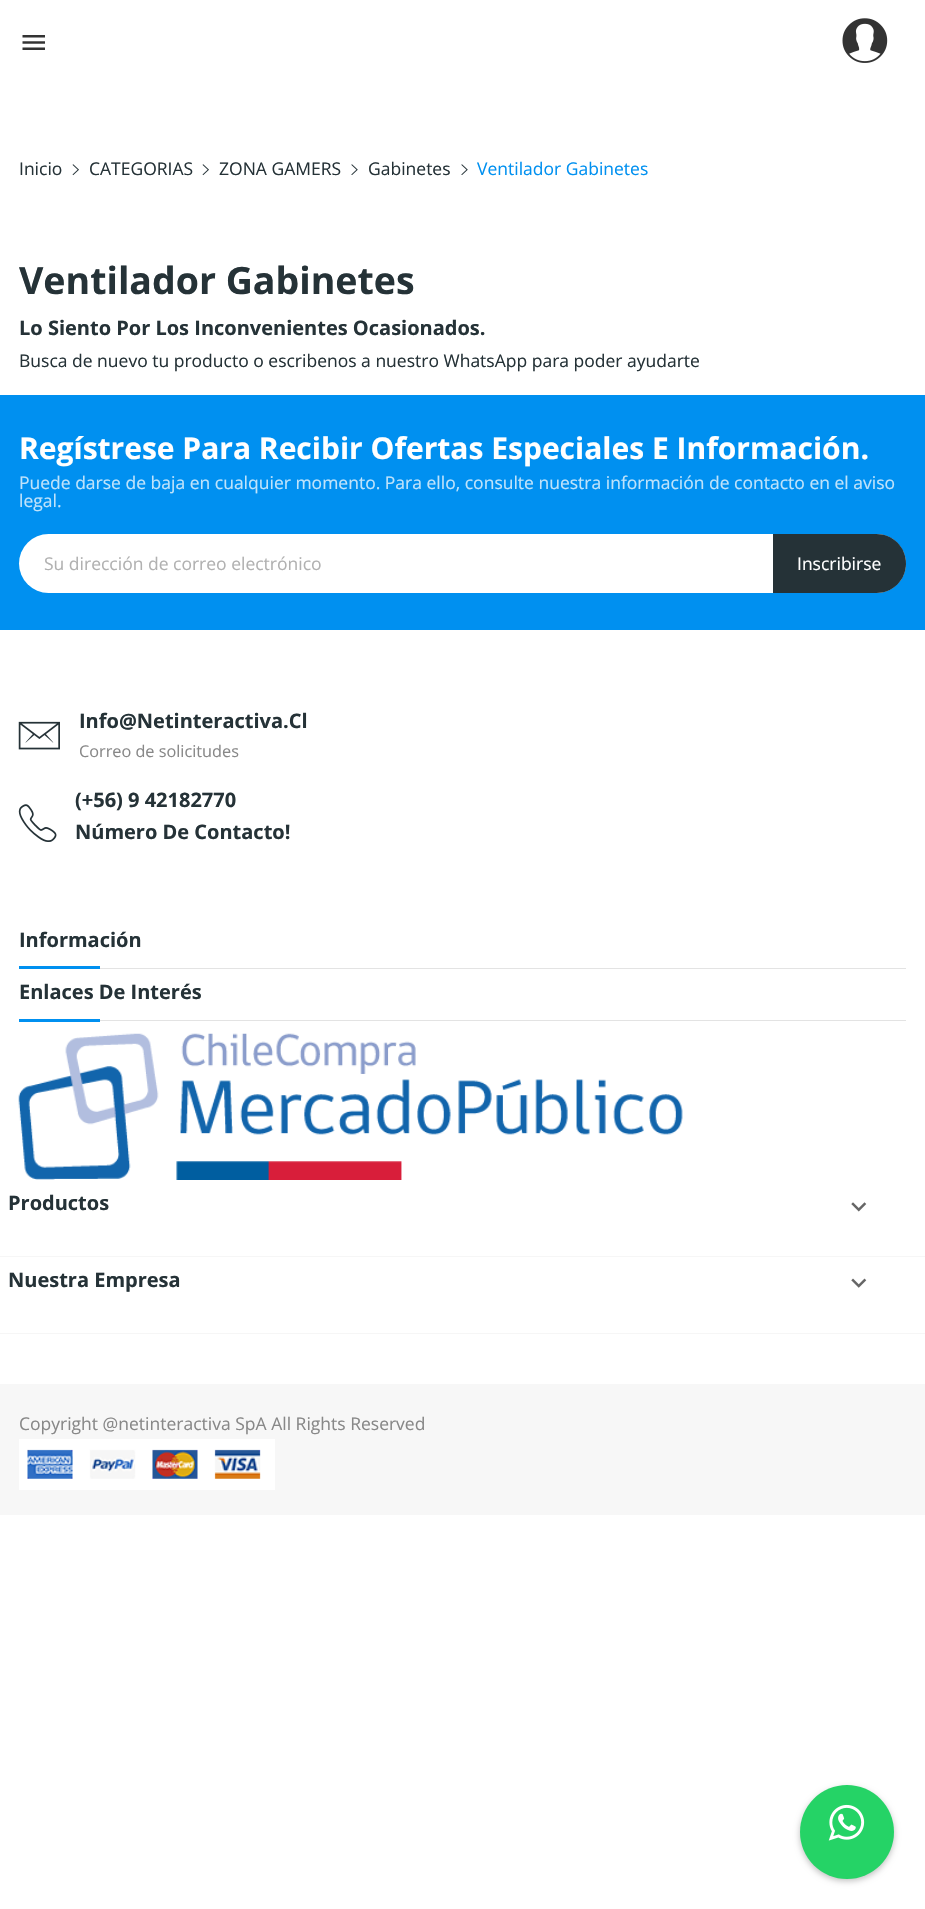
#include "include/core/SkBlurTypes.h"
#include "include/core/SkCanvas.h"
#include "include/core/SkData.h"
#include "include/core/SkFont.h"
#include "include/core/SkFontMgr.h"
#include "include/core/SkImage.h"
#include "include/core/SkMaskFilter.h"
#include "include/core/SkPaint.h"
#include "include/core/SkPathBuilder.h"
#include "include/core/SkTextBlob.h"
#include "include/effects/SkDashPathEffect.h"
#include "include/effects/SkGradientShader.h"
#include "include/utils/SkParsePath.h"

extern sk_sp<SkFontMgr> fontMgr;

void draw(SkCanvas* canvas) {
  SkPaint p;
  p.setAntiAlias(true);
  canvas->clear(SK_ColorWHITE);
  canvas->drawImageRect(SkImages::DeferredFromEncodedData(SkData::MakeFromFileName("images/1.png")), SkRect::MakeLTRB(22, 35, 45, 50), SkSamplingOptions());
  canvas->drawImageRect(SkImages::DeferredFromEncodedData(SkData::MakeFromFileName("images/2.png")), SkRect::MakeLTRB(842, 18, 888, 63), SkSamplingOptions());
  canvas->drawImageRect(SkImages::DeferredFromEncodedData(SkData::MakeFromFileName("images/3.png")), SkRect::MakeLTRB(72, 164, 79, 176), SkSamplingOptions());
  canvas->drawImageRect(SkImages::DeferredFromEncodedData(SkData::MakeFromFileName("images/3.png")), SkRect::MakeLTRB(202, 164, 209, 176), SkSamplingOptions());
  canvas->drawImageRect(SkImages::DeferredFromEncodedData(SkData::MakeFromFileName("images/4.png")), SkRect::MakeLTRB(351, 164, 358, 175), SkSamplingOptions());
  canvas->drawImageRect(SkImages::DeferredFromEncodedData(SkData::MakeFromFileName("images/4.png")), SkRect::MakeLTRB(461, 164, 468, 175), SkSamplingOptions());
  p.setColor(SkColorSetRGB(0, 144, 240));
  canvas->drawRect(SkRect::MakeLTRB(0, 395, 925, 630), p);
  p.setColor(SK_ColorWHITE);
  canvas->drawRoundRect(SkRect::MakeLTRB(19, 534, 906, 593), 29.5f, 29.5f, p);
  p.setColor(SkColorSetRGB(37, 50, 55));
  canvas->drawPath(SkPathBuilder().moveTo(773, 534).lineTo(876.5f, 534).cubicTo(893, 534, 906, 547, 906, 563.5f).cubicTo(906, 580, 893, 593, 876.5f, 593).lineTo(773, 593).close().detach(), p);
  canvas->drawImageRect(SkImages::DeferredFromEncodedData(SkData::MakeFromFileName("images/5.png")), SkRect::MakeLTRB(18, 721, 60, 750), SkSamplingOptions());
  canvas->drawImageRect(SkImages::DeferredFromEncodedData(SkData::MakeFromFileName("images/6.png")), SkRect::MakeLTRB(18, 804, 57, 842), SkSamplingOptions());
  p.setColor(SkColorSetRGB(227, 227, 227));
  canvas->drawRect(SkRect::MakeLTRB(100, 968, 906, 969), p);
  p.setColor(SkColorSetRGB(0, 144, 240));
  canvas->drawRect(SkRect::MakeLTRB(19, 966, 100, 969), p);
  p.setColor(SkColorSetRGB(227, 227, 227));
  canvas->drawRect(SkRect::MakeLTRB(100, 1020, 906, 1021), p);
  p.setColor(SkColorSetRGB(0, 144, 240));
  canvas->drawRect(SkRect::MakeLTRB(19, 1019, 100, 1022), p);
  canvas->drawImageRect(SkImages::DeferredFromEncodedData(SkData::MakeFromFileName("images/7.png")), SkRect::MakeLTRB(18, 1033, 683, 1180), SkSamplingOptions());
  p.setColor(SkColorSetRGB(246, 246, 246));
  canvas->drawRect(SkRect::MakeLTRB(0, 1256, 925, 1257), p);
  canvas->drawImageRect(SkImages::DeferredFromEncodedData(SkData::MakeFromFileName("images/8.png")), SkRect::MakeLTRB(851, 1202, 867, 1212), SkSamplingOptions());
  canvas->drawRect(SkRect::MakeLTRB(0, 1333, 925, 1334), p);
  canvas->drawImageRect(SkImages::DeferredFromEncodedData(SkData::MakeFromFileName("images/9.png")), SkRect::MakeLTRB(851, 1278, 867, 1288), SkSamplingOptions());
  p.setColor(SkColorSetRGB(247, 247, 247));
  canvas->drawRect(SkRect::MakeLTRB(0, 1384, 925, 1515), p);
  canvas->drawImageRect(SkImages::DeferredFromEncodedData(SkData::MakeFromFileName("images/10.png")), SkRect::MakeLTRB(19, 1439, 275, 1490), SkSamplingOptions());
  p.setColor(SkColorSetARGB(64, 0, 0, 0));
  p.setMaskFilter(SkMaskFilter::MakeBlur(kNormal_SkBlurStyle, 3));
  canvas->drawRoundRect(SkRect::MakeLTRB(800, 1788, 894, 1881), 46.5f, 46.5f, p);
  p.setMaskFilter(nullptr);
  p.setColor(SkColorSetRGB(37, 211, 102));
  canvas->drawCircle(847, 1832, 47, p);
  canvas->drawImageRect(SkImages::DeferredFromEncodedData(SkData::MakeFromFileName("images/11.png")), SkRect::MakeLTRB(828, 1804, 865, 1841), SkSamplingOptions());
  SkFont font1(fontMgr->matchFamilyStyle("Open Sans", SkFontStyle::Normal()), 17.5f);
  font1.setSubpixel(true);
  p.setColor(SkColorSetRGB(37, 50, 55));
  canvas->drawString("Inicio", 19, 175, font1, p);
  canvas->drawString("CATEGORIAS", 89, 175, font1, p);
  canvas->drawString("ZONA GAMERS", 219, 175, font1, p);
  canvas->drawString("Gabinetes", 368, 175, font1, p);
  p.setColor(SkColorSetRGB(0, 144, 240));
  canvas->drawString("Ventilador Gabinetes", 477, 175, font1, p);
  SkFont font2(fontMgr->matchFamilyStyle("Open Sans", SkFontStyle::Bold()), 37.5f);
  font2.setSubpixel(true);
  p.setColor(SkColorSetRGB(37, 50, 55));
  canvas->drawString("Ventilador Gabinetes", 19, 294, font2, p);
  SkFont font3(fontMgr->matchFamilyStyle("Open Sans", SkFontStyle::Bold()), 20);
  font3.setSubpixel(true);
  canvas->drawString("Lo Siento Por Los Inconvenientes Ocasionados.", 19, 335, font3, p);
  canvas->drawString("Busca de nuevo tu producto o escribenos a nuestro WhatsApp para poder ayudarte", 19, 367, font1, p);
  SkFont font4(fontMgr->matchFamilyStyle("Open Sans", SkFontStyle::Bold()), 30);
  font4.setSubpixel(true);
  p.setColor(SK_ColorWHITE);
  canvas->drawString("Regístrese Para Recibir Ofertas Especiales E Información.", 19, 459, font4, p);
  p.setColor(SkColorSetRGB(191, 227, 251));
  canvas->drawString("Puede darse de baja en cualquier momento. Para ello, consulte nuestra información de contacto en el aviso", 19, 489, font1, p);
  canvas->drawString("legal.", 19, 507, font1, p);
  p.setColor(SkColorSetRGB(177, 177, 177));
  canvas->drawString("Su dirección de correo electrónico", 44, 570, font1, p);
  p.setColor(SK_ColorWHITE);
  canvas->drawString("Inscribirse", 797, 570, font1, p);
  p.setColor(SkColorSetRGB(37, 50, 55));
  canvas->drawString("Info@Netinteractiva.Cl", 79, 728, font3, p);
  SkFont font5(fontMgr->matchFamilyStyle("Open Sans", SkFontStyle::Normal()), 16.25f);
  font5.setSubpixel(true);
  p.setColor(SkColorSetRGB(136, 136, 136));
  canvas->drawString("Correo de solicitudes", 79, 757, font5, p);
  p.setColor(SkColorSetRGB(37, 50, 55));
  canvas->drawString("(+56) 9 42182770", 75, 807, font3, p);
  canvas->drawString("Número De Contacto!", 75, 839, font3, p);
  canvas->drawString("Información", 19, 947, font3, p);
  canvas->drawString("Enlaces De Interés", 19, 999, font3, p);
  canvas->drawString("Productos", 8, 1210, font3, p);
  canvas->drawString("Nuestra Empresa", 8, 1287, font3, p);
  p.setColor(SkColorSetRGB(136, 136, 136));
  canvas->drawString("Copyright @netinteractiva SpA All Rights Reserved", 19, 1430, font1, p);
}
